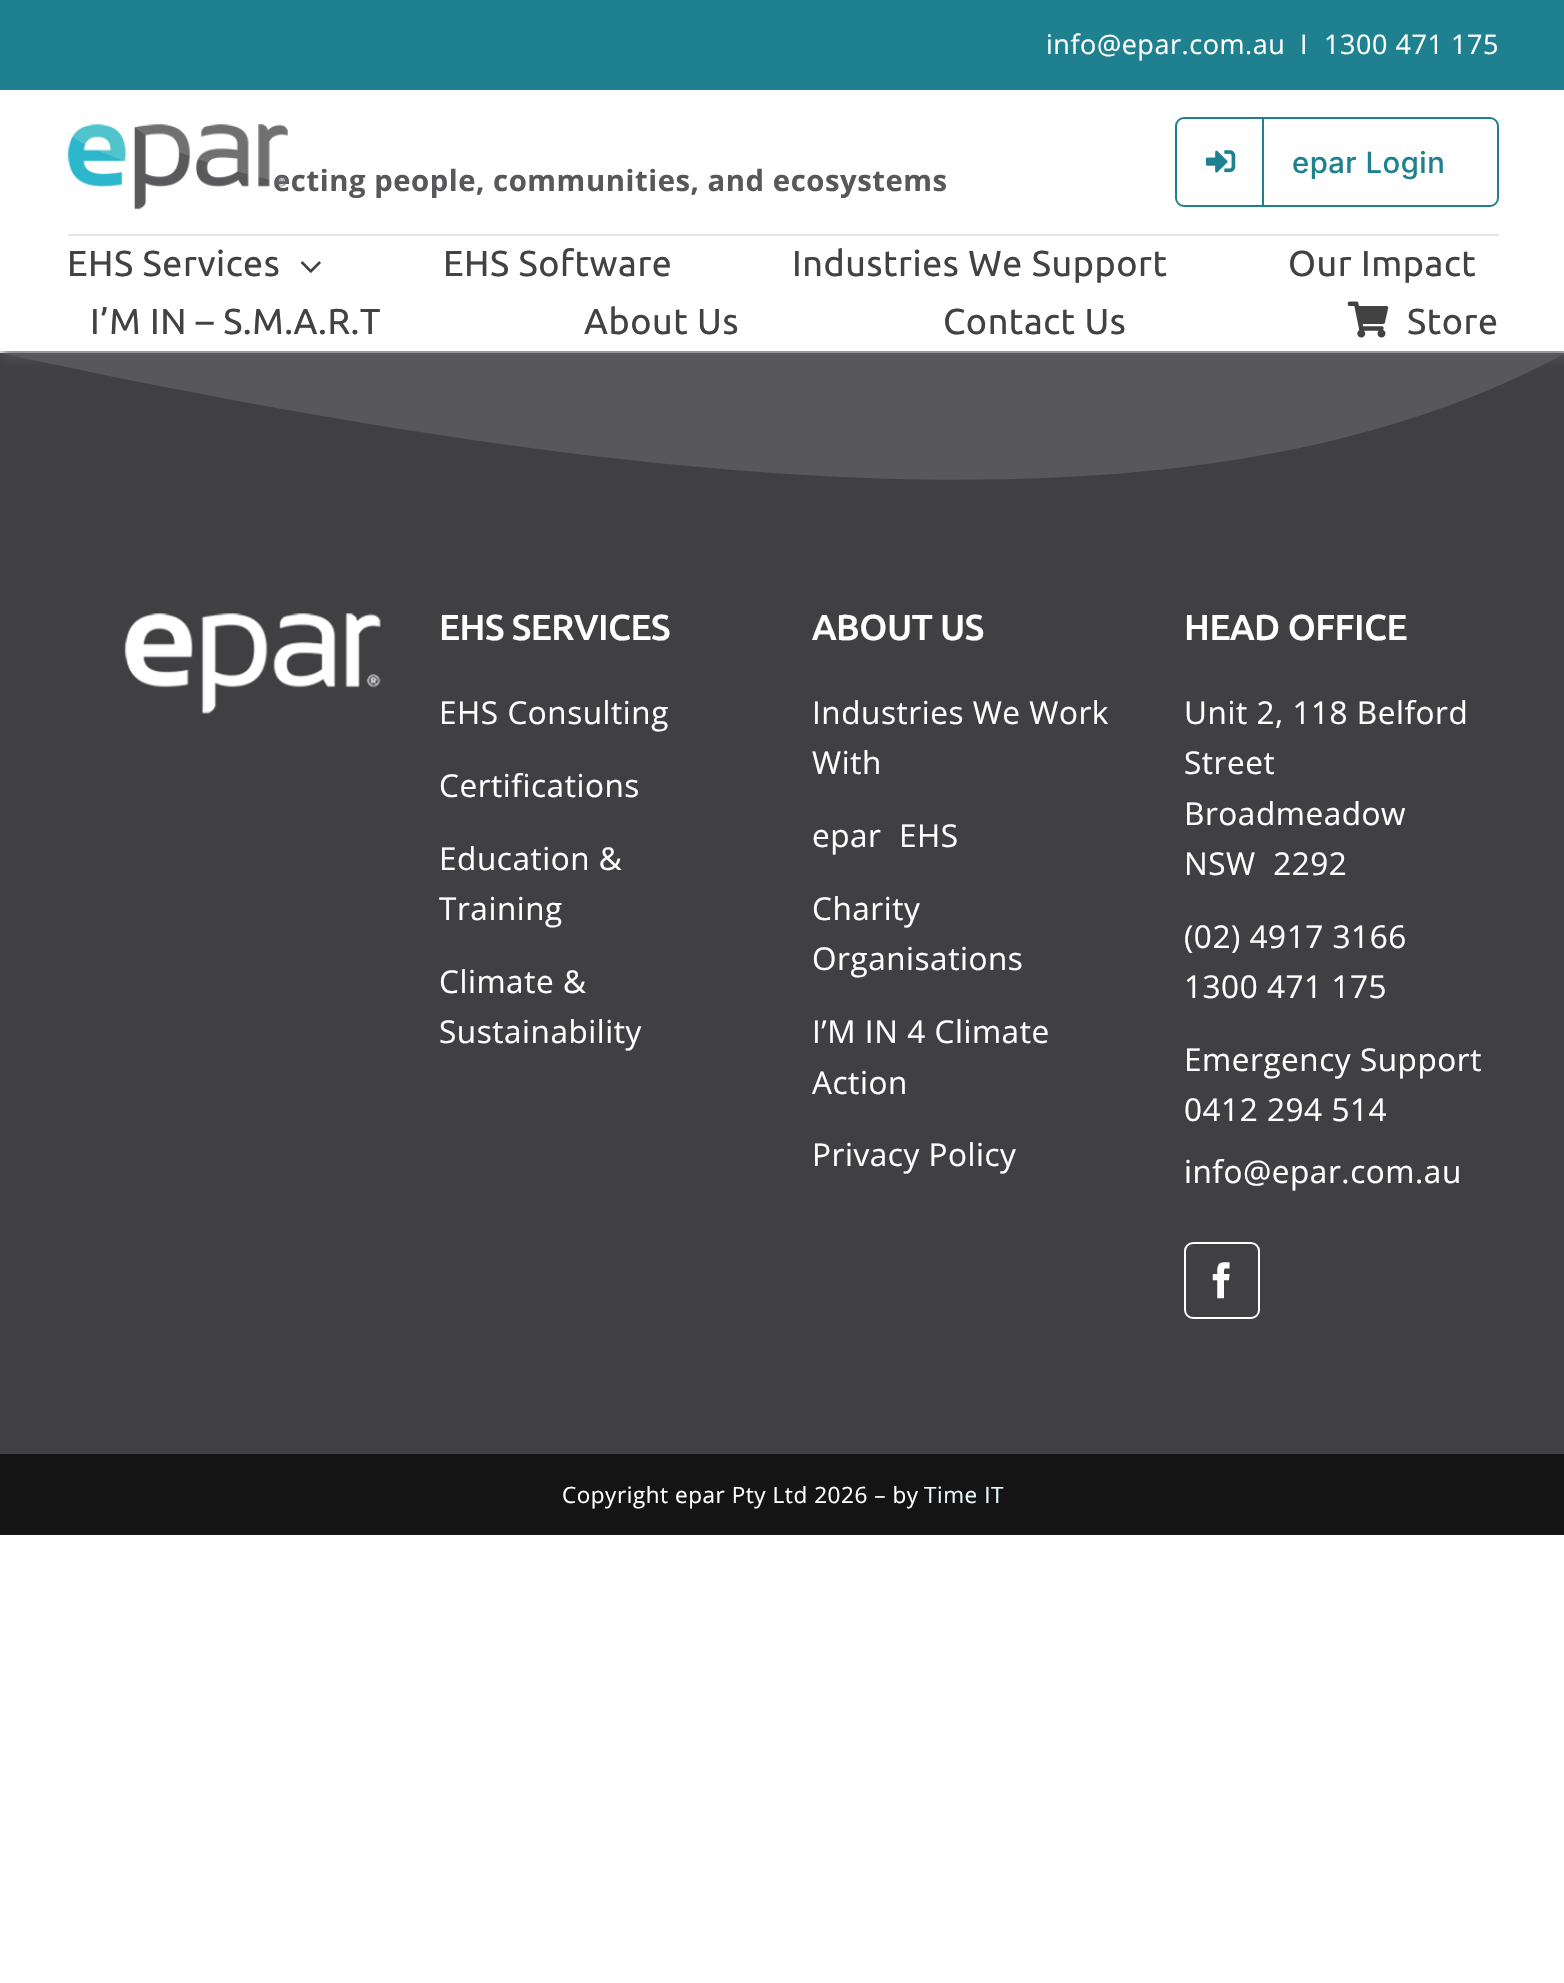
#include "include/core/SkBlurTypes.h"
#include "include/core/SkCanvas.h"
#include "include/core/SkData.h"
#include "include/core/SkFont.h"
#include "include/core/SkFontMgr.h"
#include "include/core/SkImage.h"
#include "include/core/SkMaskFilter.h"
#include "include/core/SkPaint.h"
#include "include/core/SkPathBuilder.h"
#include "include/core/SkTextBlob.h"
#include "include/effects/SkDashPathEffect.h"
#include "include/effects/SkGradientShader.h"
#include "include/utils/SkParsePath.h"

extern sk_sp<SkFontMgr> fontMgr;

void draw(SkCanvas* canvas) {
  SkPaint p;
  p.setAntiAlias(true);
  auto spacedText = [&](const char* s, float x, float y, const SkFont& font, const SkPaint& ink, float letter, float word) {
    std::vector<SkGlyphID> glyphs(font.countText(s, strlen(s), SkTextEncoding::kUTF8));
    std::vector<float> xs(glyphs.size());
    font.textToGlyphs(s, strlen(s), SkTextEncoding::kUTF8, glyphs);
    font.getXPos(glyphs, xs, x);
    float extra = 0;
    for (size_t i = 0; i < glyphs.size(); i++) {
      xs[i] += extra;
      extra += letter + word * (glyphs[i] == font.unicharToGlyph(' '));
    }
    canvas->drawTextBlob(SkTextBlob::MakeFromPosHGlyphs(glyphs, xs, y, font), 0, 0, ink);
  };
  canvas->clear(SK_ColorWHITE);
  p.setColor(SkColorSetRGB(31, 128, 144));
  canvas->drawRect(SkRect::MakeLTRB(0, 0, 1564, 90), p);
  p.setStyle(SkPaint::kStroke_Style);
  p.setStrokeWidth(2);
  canvas->drawRoundRect(SkRect::MakeLTRB(1176, 118, 1498, 206), 8, 8, p);
  p.setStyle(SkPaint::kFill_Style);
  canvas->drawRect(SkRect::MakeLTRB(1262, 119, 1264, 205), p);
  canvas->drawImageRect(SkImages::DeferredFromEncodedData(SkData::MakeFromFileName("images/2.png")), SkRect::MakeLTRB(1206, 150, 1236, 173), SkSamplingOptions());
  p.setColor(SkColorSetRGB(64, 64, 66));
  canvas->drawRect(SkRect::MakeLTRB(0, 353, 1564, 1454), p);
  p.setColor(SkColorSetRGB(88, 88, 91));
  canvas->drawPath(SkPathBuilder().moveTo(0, 353).cubicTo(783, 522, 1253, 522, 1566, 353).close().detach(), p);
  canvas->save();
  canvas->clipRect(SkRect::MakeLTRB(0, 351, 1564, 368));
  p.setColor(SkColorSetARGB(168, 88, 88, 91));
  p.setMaskFilter(SkMaskFilter::MakeBlur(kNormal_SkBlurStyle, 4.5f));
  canvas->drawRect(SkRect::MakeLTRB(2, 243, 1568, 360), p);
  p.setMaskFilter(nullptr);
  canvas->restore();
  p.setColor(SkColorSetRGB(229, 230, 231));
  canvas->drawRect(SkRect::MakeLTRB(68, 234, 1499, 236), p);
  canvas->drawImageRect(SkImages::DeferredFromEncodedData(SkData::MakeFromFileName("images/3.png")), SkRect::MakeLTRB(300, 261, 321, 273), SkSamplingOptions());
  canvas->drawImageRect(SkImages::DeferredFromEncodedData(SkData::MakeFromFileName("images/4.png")), SkRect::MakeLTRB(1347, 301, 1389, 338), SkSamplingOptions());
  canvas->drawImageRect(SkImages::DeferredFromEncodedData(SkData::MakeFromFileName("images/5.png")), SkRect::MakeLTRB(124, 613, 381, 714), SkSamplingOptions());
  p.setStyle(SkPaint::kStroke_Style);
  p.setColor(SK_ColorWHITE);
  canvas->drawRoundRect(SkRect::MakeLTRB(1185, 1243, 1259, 1318), 8, 8, p);
  canvas->drawImageRect(SkImages::DeferredFromEncodedData(SkData::MakeFromFileName("images/6.png")), SkRect::MakeLTRB(1212, 1262, 1230, 1299), SkSamplingOptions());
  p.setStyle(SkPaint::kFill_Style);
  p.setColor(SkColorSetRGB(20, 20, 20));
  canvas->drawRect(SkRect::MakeLTRB(0, 1454, 1564, 1535), p);
  SkFont font1(fontMgr->matchFamilyStyle("Open Sans", SkFontStyle::Normal()), 27);
  font1.setSubpixel(true);
  p.setColor(SK_ColorWHITE);
  spacedText("info@epar.com.au", 1046, 54, font1, p, 0.55f, 0);
  spacedText("I", 1300, 54, font1, p, 0.55f, 0);
  spacedText("1300 471 175", 1324, 54, font1, p, 0.55f, 0);
  SkFont font2(fontMgr->matchFamilyStyle("Inter", SkFontStyle(500, SkFontStyle::kNormal_Width, SkFontStyle::kUpright_Slant)), 29.25f);
  font2.setSubpixel(true);
  p.setColor(SkColorSetRGB(31, 128, 144));
  spacedText("epar Login", 1292, 173, font2, p, 0.5f, 0);
  SkFont font3(fontMgr->matchFamilyStyle("Open Sans", SkFontStyle::Bold()), 29.25f);
  font3.setSubpixel(true);
  p.setColor(SkColorSetRGB(88, 88, 91));
  spacedText("ecting people, communities, and ecosystems", 273, 191, font3, p, 0.55f, 0);
  canvas->drawImageRect(SkImages::DeferredFromEncodedData(SkData::MakeFromFileName("images/1.png")), SkRect::MakeLTRB(67, 123, 288, 210), SkSamplingOptions());
  SkFont font4(fontMgr->matchFamilyStyle("Ubuntu", SkFontStyle::Normal()), 36);
  font4.setSubpixel(true);
  p.setColor(SkColorSetRGB(66, 66, 66));
  spacedText("EHS Services", 67, 276, font4, p, 0.55f, 0);
  spacedText("EHS Software", 443, 276, font4, p, 0.55f, 0);
  spacedText("Industries We Support", 792, 276, font4, p, 0.55f, 0);
  spacedText("Our Impact", 1288, 276, font4, p, 0.55f, 0);
  spacedText("I’M IN – S.M.A.R.T", 90, 334, font4, p, 0.55f, 0);
  spacedText("About Us", 584, 334, font4, p, 0.55f, 0);
  spacedText("Contact Us", 943, 334, font4, p, 0.55f, 0);
  spacedText("Store", 1407, 334, font4, p, 0.55f, 0);
  SkFont font5(fontMgr->matchFamilyStyle("Ubuntu", SkFontStyle(500, SkFontStyle::kNormal_Width, SkFontStyle::kUpright_Slant)), 36);
  font5.setSubpixel(true);
  p.setColor(SK_ColorWHITE);
  spacedText("EHS SERVICES", 439, 640, font5, p, -0.5f, 0);
  SkFont font6(fontMgr->matchFamilyStyle("Open Sans", SkFontStyle::Normal()), 31.5f);
  font6.setSubpixel(true);
  spacedText("EHS Consulting", 439, 724, font6, p, 0.55f, 0);
  spacedText("Certifications", 439, 797, font6, p, 0.55f, 0);
  spacedText("Education &", 439, 870, font6, p, 0.55f, 0);
  spacedText("Training", 439, 920, font6, p, 0.55f, 0);
  spacedText("Climate &", 439, 993, font6, p, 0.55f, 0);
  spacedText("Sustainability", 439, 1043, font6, p, 0.55f, 0);
  spacedText("ABOUT US", 812, 640, font5, p, -0.5f, 0);
  spacedText("Industries We Work", 812, 724, font6, p, 0.55f, 0);
  spacedText("With", 812, 774, font6, p, 0.55f, 0);
  spacedText("epar  EHS", 812, 847, font6, p, 0.55f, 0);
  spacedText("Charity", 812, 920, font6, p, 0.55f, 0);
  spacedText("Organisations", 812, 970, font6, p, 0.55f, 0);
  spacedText("I’M IN 4 Climate", 812, 1043, font6, p, 0.55f, 0);
  spacedText("Action", 812, 1094, font6, p, 0.55f, 0);
  spacedText("Privacy Policy", 812, 1166, font6, p, 0.55f, 0);
  spacedText("HEAD OFFICE", 1184, 640, font5, p, -0.5f, 0);
  spacedText("Unit 2, 118 Belford", 1184, 724, font6, p, 0.55f, 0);
  spacedText("Street", 1184, 774, font6, p, 0.55f, 0);
  spacedText("Broadmeadow", 1184, 825, font6, p, 0.55f, 0);
  spacedText("NSW  2292", 1184, 875, font6, p, 0.55f, 0);
  spacedText("(02) 4917 3166", 1184, 948, font6, p, 0.55f, 0);
  spacedText("1300 471 175", 1184, 998, font6, p, 0.55f, 0);
  spacedText("Emergency Support", 1184, 1071, font6, p, 0.55f, 0);
  spacedText("0412 294 514", 1184, 1121, font6, p, 0.55f, 0);
  spacedText("info@epar.com.au", 1184, 1183, font6, p, 0.55f, 0);
  SkFont font7(fontMgr->matchFamilyStyle("Open Sans", SkFontStyle::Normal()), 22.5f);
  font7.setSubpixel(true);
  spacedText("Copyright epar Pty Ltd 2026 – by", 562, 1503, font7, p, 0.55f, 0);
  p.setColor(SkColorSetRGB(234, 247, 250));
  spacedText("Time IT", 924, 1503, font7, p, 0.55f, 0);
}
